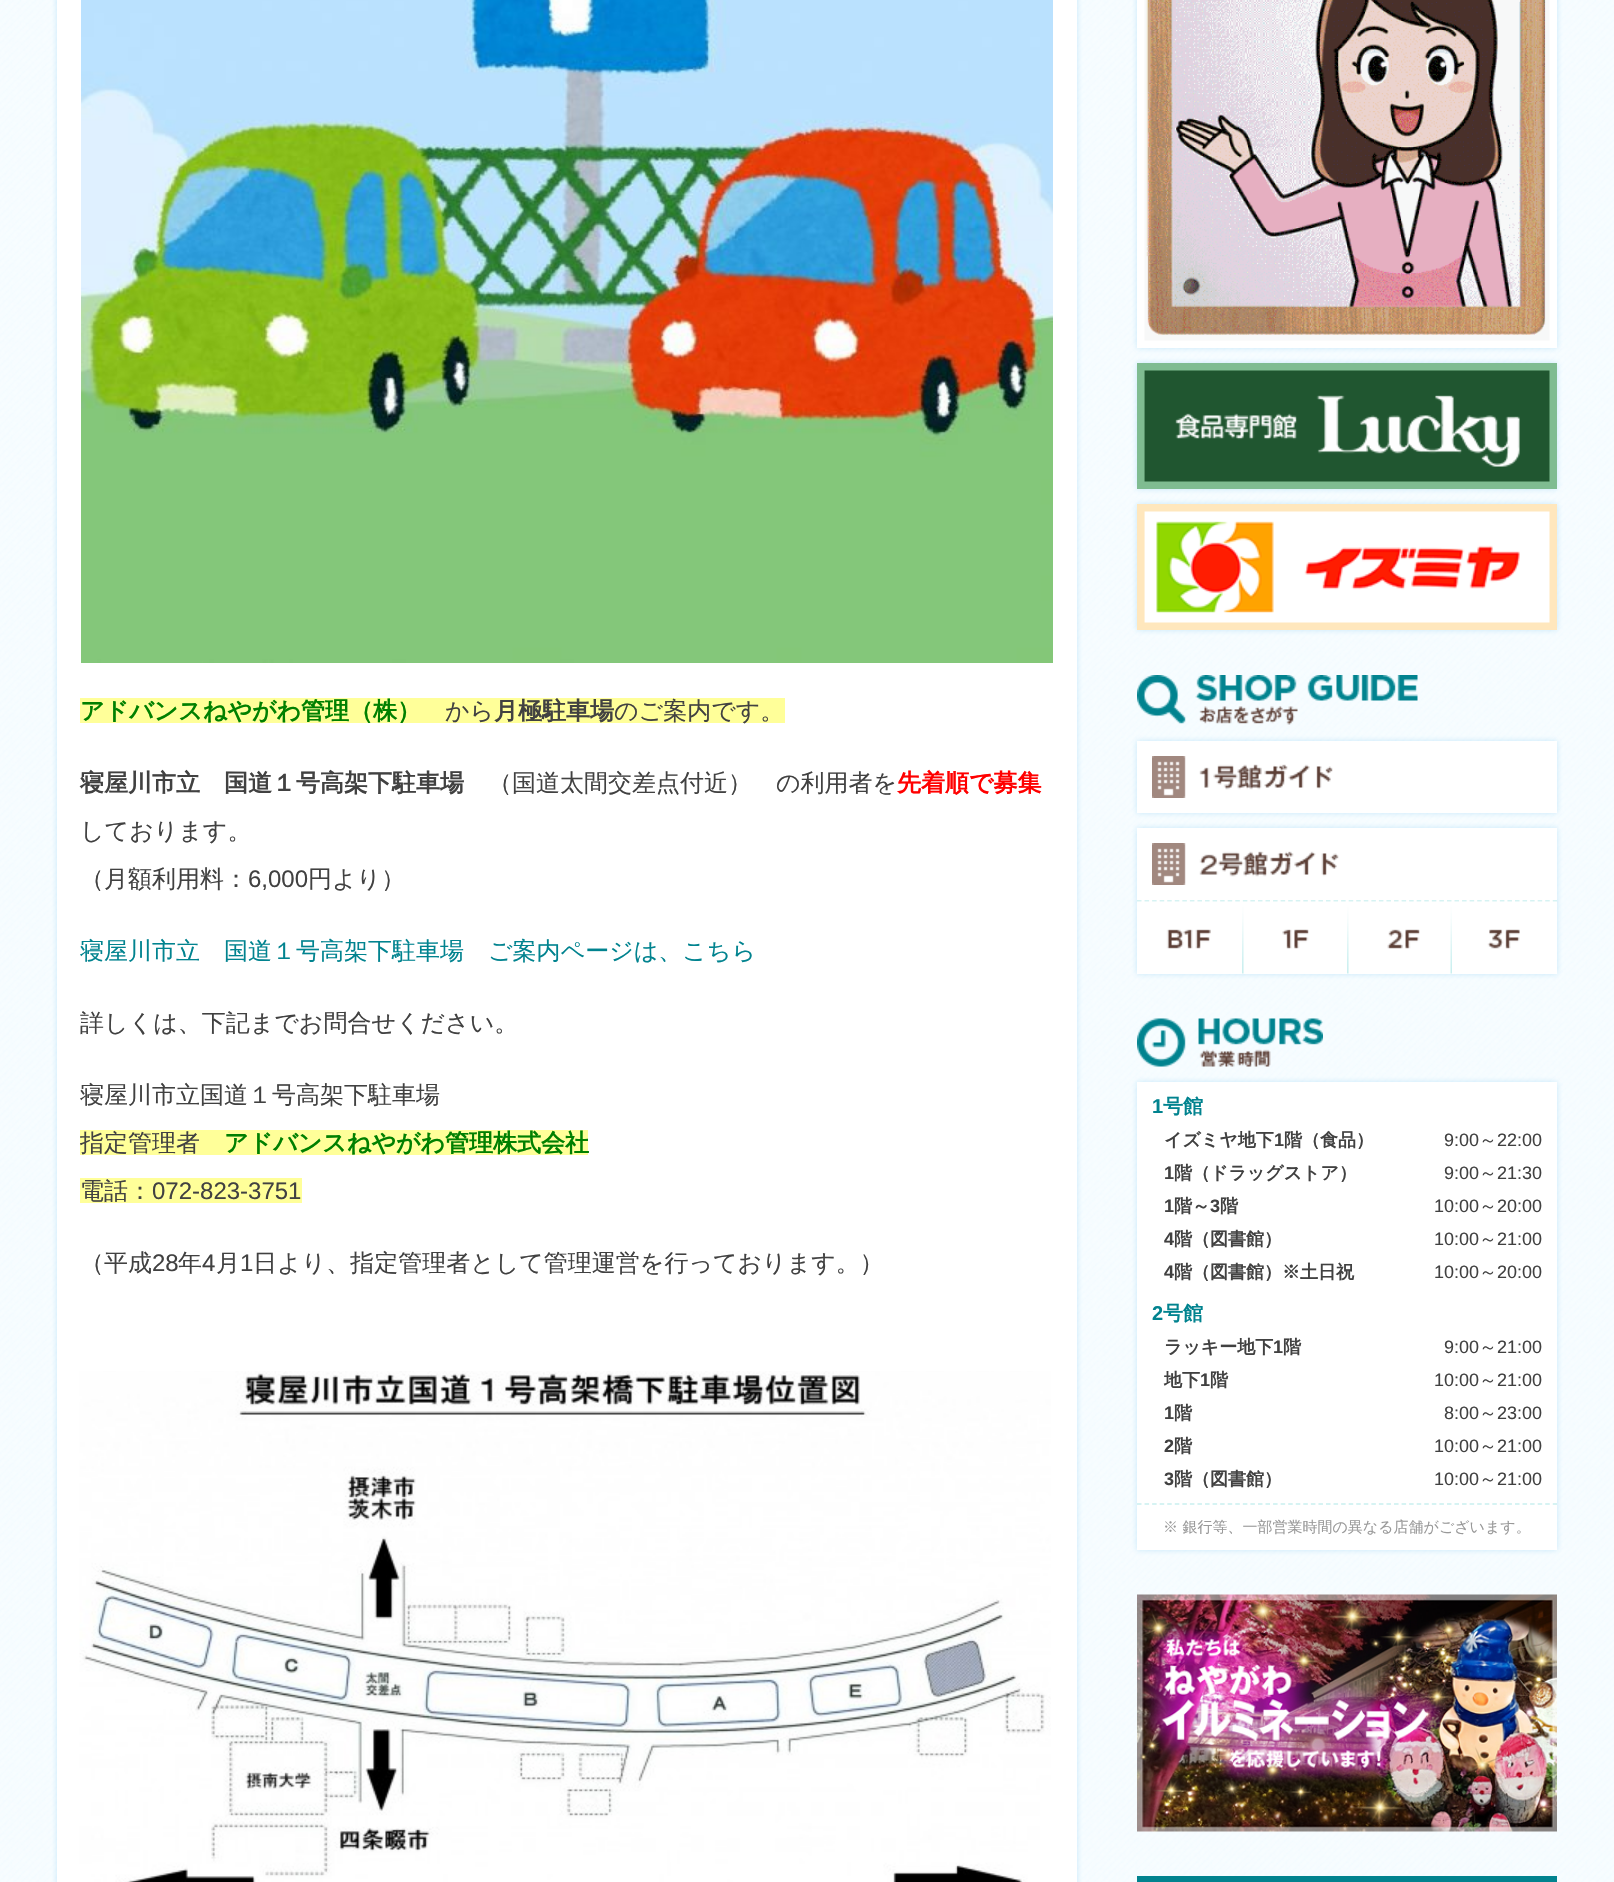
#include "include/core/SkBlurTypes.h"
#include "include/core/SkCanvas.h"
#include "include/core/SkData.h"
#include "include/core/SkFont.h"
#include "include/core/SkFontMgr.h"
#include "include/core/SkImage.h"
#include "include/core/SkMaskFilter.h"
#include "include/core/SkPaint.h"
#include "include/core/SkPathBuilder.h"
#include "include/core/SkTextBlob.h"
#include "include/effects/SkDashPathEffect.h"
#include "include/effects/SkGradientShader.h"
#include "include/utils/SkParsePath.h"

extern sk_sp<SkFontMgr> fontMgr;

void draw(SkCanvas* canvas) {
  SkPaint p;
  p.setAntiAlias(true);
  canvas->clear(SK_ColorWHITE);
  canvas->drawImageRect(SkImages::DeferredFromEncodedData(SkData::MakeFromFileName("images/1.png")), SkRect::MakeLTRB(0, 0, 1614, 1882), SkSamplingOptions());
  p.setColor(SkColorSetARGB(51, 3, 155, 229));
  p.setMaskFilter(SkMaskFilter::MakeBlur(kNormal_SkBlurStyle, 3));
  canvas->drawRect(SkRect::MakeLTRB(57, -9, 1077, 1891), p);
  p.setMaskFilter(nullptr);
  p.setColor(SK_ColorWHITE);
  canvas->drawRect(SkRect::MakeLTRB(57, 0, 1077, 1882), p);
  canvas->drawImageRect(SkImages::DeferredFromEncodedData(SkData::MakeFromFileName("images/2.png")), SkRect::MakeLTRB(81, 0, 1053, 663), SkSamplingOptions());
  p.setColor(SkColorSetRGB(255, 255, 153));
  canvas->drawRect(SkRect::MakeLTRB(80, 698, 785, 723), p);
  canvas->drawRect(SkRect::MakeLTRB(80, 1130, 588, 1155), p);
  canvas->drawRect(SkRect::MakeLTRB(80, 1178, 302, 1203), p);
  canvas->drawImageRect(SkImages::DeferredFromEncodedData(SkData::MakeFromFileName("images/3.png")), SkRect::MakeLTRB(79, 1371, 1051, 1882), SkSamplingOptions());
  p.setColor(SkColorSetARGB(51, 3, 155, 229));
  p.setMaskFilter(SkMaskFilter::MakeBlur(kNormal_SkBlurStyle, 3));
  canvas->drawRect(SkRect::MakeLTRB(1137, -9, 1557, 348), p);
  p.setMaskFilter(nullptr);
  p.setColor(SK_ColorWHITE);
  canvas->drawRect(SkRect::MakeLTRB(1137, 0, 1557, 348), p);
  canvas->drawImageRect(SkImages::DeferredFromEncodedData(SkData::MakeFromFileName("images/4.png")), SkRect::MakeLTRB(1144, 0, 1550, 341), SkSamplingOptions());
  p.setColor(SkColorSetARGB(51, 3, 155, 229));
  p.setMaskFilter(SkMaskFilter::MakeBlur(kNormal_SkBlurStyle, 3));
  canvas->drawRect(SkRect::MakeLTRB(1137, 363, 1557, 489), p);
  p.setMaskFilter(nullptr);
  canvas->drawImageRect(SkImages::DeferredFromEncodedData(SkData::MakeFromFileName("images/5.png")), SkRect::MakeLTRB(1137, 363, 1557, 489), SkSamplingOptions());
  p.setMaskFilter(SkMaskFilter::MakeBlur(kNormal_SkBlurStyle, 3));
  canvas->drawRect(SkRect::MakeLTRB(1137, 504, 1557, 630), p);
  p.setMaskFilter(nullptr);
  canvas->drawImageRect(SkImages::DeferredFromEncodedData(SkData::MakeFromFileName("images/6.png")), SkRect::MakeLTRB(1137, 504, 1557, 630), SkSamplingOptions());
  canvas->drawImageRect(SkImages::DeferredFromEncodedData(SkData::MakeFromFileName("images/7.png")), SkRect::MakeLTRB(1137, 675, 1418, 725), SkSamplingOptions());
  p.setMaskFilter(SkMaskFilter::MakeBlur(kNormal_SkBlurStyle, 3));
  canvas->drawRect(SkRect::MakeLTRB(1137, 741, 1557, 813), p);
  p.setMaskFilter(nullptr);
  p.setColor(SK_ColorWHITE);
  canvas->drawRect(SkRect::MakeLTRB(1137, 741, 1557, 813), p);
  canvas->drawImageRect(SkImages::DeferredFromEncodedData(SkData::MakeFromFileName("images/8.png")), SkRect::MakeLTRB(1152, 756, 1333, 798), SkSamplingOptions());
  p.setColor(SkColorSetARGB(51, 3, 155, 229));
  p.setMaskFilter(SkMaskFilter::MakeBlur(kNormal_SkBlurStyle, 3));
  canvas->drawRect(SkRect::MakeLTRB(1137, 828, 1557, 974), p);
  p.setMaskFilter(nullptr);
  p.setColor(SK_ColorWHITE);
  canvas->drawRect(SkRect::MakeLTRB(1137, 828, 1557, 974), p);
  canvas->drawImageRect(SkImages::DeferredFromEncodedData(SkData::MakeFromFileName("images/9.png")), SkRect::MakeLTRB(1152, 843, 1339, 885), SkSamplingOptions());
  p.setStyle(SkPaint::kStroke_Style);
  p.setStrokeWidth(1.5f);
  p.setColor(SkColorSetRGB(201, 239, 239));
  p.setPathEffect(SkDashPathEffect::Make({{4.5f, 3.06f}}, 0));
  canvas->drawPath(SkPathBuilder().moveTo(1137, 901).lineTo(1557, 901).detach(), p);
  p.setPathEffect(nullptr);
  canvas->drawImageRect(SkImages::DeferredFromEncodedData(SkData::MakeFromFileName("images/10.png")), SkRect::MakeLTRB(1137, 901, 1240, 949), SkSamplingOptions());
  canvas->drawImageRect(SkImages::DeferredFromEncodedData(SkData::MakeFromFileName("images/11.png")), SkRect::MakeLTRB(1242, 901, 1346, 974), SkSamplingOptions());
  canvas->drawImageRect(SkImages::DeferredFromEncodedData(SkData::MakeFromFileName("images/12.png")), SkRect::MakeLTRB(1347, 901, 1452, 974), SkSamplingOptions());
  canvas->drawImageRect(SkImages::DeferredFromEncodedData(SkData::MakeFromFileName("images/13.png")), SkRect::MakeLTRB(1454, 901, 1557, 949), SkSamplingOptions());
  canvas->drawImageRect(SkImages::DeferredFromEncodedData(SkData::MakeFromFileName("images/14.png")), SkRect::MakeLTRB(1137, 1018, 1323, 1067), SkSamplingOptions());
  p.setStyle(SkPaint::kFill_Style);
  p.setColor(SkColorSetARGB(51, 3, 155, 229));
  p.setMaskFilter(SkMaskFilter::MakeBlur(kNormal_SkBlurStyle, 3));
  canvas->drawRect(SkRect::MakeLTRB(1137, 1082, 1557, 1550), p);
  p.setMaskFilter(nullptr);
  p.setColor(SK_ColorWHITE);
  canvas->drawRect(SkRect::MakeLTRB(1137, 1082, 1557, 1550), p);
  p.setStyle(SkPaint::kStroke_Style);
  p.setColor(SkColorSetRGB(201, 239, 239));
  p.setPathEffect(SkDashPathEffect::Make({{4.5f, 3.06f}}, 0));
  canvas->drawPath(SkPathBuilder().moveTo(1137, 1504).lineTo(1557, 1504).detach(), p);
  p.setPathEffect(nullptr);
  canvas->drawImageRect(SkImages::DeferredFromEncodedData(SkData::MakeFromFileName("images/15.png")), SkRect::MakeLTRB(1137, 1594, 1557, 1832), SkSamplingOptions());
  p.setStyle(SkPaint::kFill_Style);
  p.setColor(SkColorSetRGB(1, 131, 143));
  canvas->drawRect(SkRect::MakeLTRB(1137, 1876, 1557, 1882), p);
  SkFont font1(fontMgr->matchFamilyStyle("WenQuanYi Zen Hei", SkFontStyle::Bold()), 24);
  font1.setSubpixel(true);
  p.setColor(SkColorSetRGB(0, 128, 0));
  canvas->drawString("アドバンスねやがわ管理（株）", 80, 719, font1, p);
  SkFont font2(fontMgr->matchFamilyStyle("WenQuanYi Zen Hei", SkFontStyle(500, SkFontStyle::kNormal_Width, SkFontStyle::kUpright_Slant)), 24);
  font2.setSubpixel(true);
  p.setColor(SkColorSetRGB(65, 65, 65));
  canvas->drawString("から", 445, 719, font2, p);
  canvas->drawString("月極駐車場", 494, 719, font1, p);
  canvas->drawString("のご案内です。", 614, 719, font2, p);
  canvas->drawString("寝屋川市立　国道１号高架下駐車場", 80, 791, font1, p);
  canvas->drawString("（国道太間交差点付近）　の利用者を", 488, 791, font2, p);
  p.setColor(SkColorSetRGB(255, 0, 0));
  canvas->drawString("先着順で募集", 897, 791, font1, p);
  p.setColor(SkColorSetRGB(65, 65, 65));
  canvas->drawString("しております。", 80, 839, font2, p);
  canvas->drawString("（月額利用料：", 80, 887, font2, p);
  SkFont font3(fontMgr->matchFamilyStyle("Liberation Sans", SkFontStyle::Normal()), 24);
  font3.setSubpixel(true);
  canvas->drawString("6,000", 248, 887, font3, p);
  canvas->drawString("円より）", 308, 887, font2, p);
  p.setColor(SkColorSetRGB(1, 131, 143));
  canvas->drawString("寝屋川市立　国道１号高架下駐車場　ご案内ページは、こちら", 80, 959, font2, p);
  p.setColor(SkColorSetRGB(65, 65, 65));
  canvas->drawString("詳しくは、下記までお問合せください。", 80, 1031, font2, p);
  canvas->drawString("寝屋川市立国道１号高架下駐車場", 80, 1103, font2, p);
  canvas->drawString("指定管理者", 80, 1151, font2, p);
  p.setColor(SkColorSetRGB(0, 128, 0));
  canvas->drawString("アドバンスねやがわ管理株式会社", 224, 1151, font1, p);
  p.setColor(SkColorSetRGB(65, 65, 65));
  canvas->drawString("電話：", 80, 1199, font2, p);
  canvas->drawString("072-823-3751", 152, 1199, font3, p);
  canvas->drawString("（平成", 80, 1271, font2, p);
  canvas->drawString("28", 152, 1271, font3, p);
  canvas->drawString("年", 178, 1271, font2, p);
  canvas->drawString("4", 202, 1271, font3, p);
  canvas->drawString("月", 216, 1271, font2, p);
  canvas->drawString("1", 240, 1271, font3, p);
  canvas->drawString("日より、指定管理者として管理運営を行っております。）", 253, 1271, font2, p);
  SkFont font4(fontMgr->matchFamilyStyle("Liberation Sans", SkFontStyle::Bold()), 20);
  font4.setSubpixel(true);
  p.setColor(SkColorSetRGB(1, 131, 143));
  canvas->drawString("1", 1152, 1113, font4, p);
  SkFont font5(fontMgr->matchFamilyStyle("WenQuanYi Zen Hei", SkFontStyle::Bold()), 20);
  font5.setSubpixel(true);
  canvas->drawString("号館", 1163, 1113, font5, p);
  SkFont font6(fontMgr->matchFamilyStyle("WenQuanYi Zen Hei", SkFontStyle::Bold()), 18);
  font6.setSubpixel(true);
  p.setColor(SkColorSetRGB(65, 65, 65));
  canvas->drawString("イズミヤ地下", 1164, 1146, font6, p);
  SkFont font7(fontMgr->matchFamilyStyle("Liberation Sans", SkFontStyle::Bold()), 18);
  font7.setSubpixel(true);
  canvas->drawString("1", 1274, 1146, font7, p);
  canvas->drawString("階（食品）", 1284, 1146, font6, p);
  SkFont font8(fontMgr->matchFamilyStyle("Liberation Sans", SkFontStyle::Normal()), 18);
  font8.setSubpixel(true);
  canvas->drawString("9:00", 1444, 1146, font8, p);
  SkFont font9(fontMgr->matchFamilyStyle("WenQuanYi Zen Hei", SkFontStyle(500, SkFontStyle::kNormal_Width, SkFontStyle::kUpright_Slant)), 18);
  font9.setSubpixel(true);
  canvas->drawString("～", 1479, 1146, font9, p);
  canvas->drawString("22:00", 1497, 1146, font8, p);
  canvas->drawString("1", 1164, 1179, font7, p);
  canvas->drawString("階（ドラッグストア）", 1174, 1179, font6, p);
  canvas->drawString("9:00", 1444, 1179, font8, p);
  canvas->drawString("～", 1479, 1179, font9, p);
  canvas->drawString("21:30", 1497, 1179, font8, p);
  canvas->drawString("1", 1164, 1212, font7, p);
  canvas->drawString("階～", 1174, 1212, font6, p);
  canvas->drawString("3", 1210, 1212, font7, p);
  canvas->drawString("階", 1220, 1212, font6, p);
  canvas->drawString("10:00", 1434, 1212, font8, p);
  canvas->drawString("～", 1479, 1212, font9, p);
  canvas->drawString("20:00", 1497, 1212, font8, p);
  canvas->drawString("4", 1164, 1245, font7, p);
  canvas->drawString("階（図書館）", 1174, 1245, font6, p);
  canvas->drawString("10:00", 1434, 1245, font8, p);
  canvas->drawString("～", 1479, 1245, font9, p);
  canvas->drawString("21:00", 1497, 1245, font8, p);
  canvas->drawString("4", 1164, 1278, font7, p);
  canvas->drawString("階（図書館）※土日祝", 1174, 1278, font6, p);
  canvas->drawString("10:00", 1434, 1278, font8, p);
  canvas->drawString("～", 1479, 1278, font9, p);
  canvas->drawString("20:00", 1497, 1278, font8, p);
  p.setColor(SkColorSetRGB(1, 131, 143));
  canvas->drawString("2", 1152, 1320, font4, p);
  canvas->drawString("号館", 1163, 1320, font5, p);
  p.setColor(SkColorSetRGB(65, 65, 65));
  canvas->drawString("ラッキー地下", 1164, 1353, font6, p);
  canvas->drawString("1", 1273, 1353, font7, p);
  canvas->drawString("階", 1283, 1353, font6, p);
  canvas->drawString("9:00", 1444, 1353, font8, p);
  canvas->drawString("～", 1479, 1353, font9, p);
  canvas->drawString("21:00", 1497, 1353, font8, p);
  canvas->drawString("地下", 1164, 1386, font6, p);
  canvas->drawString("1", 1200, 1386, font7, p);
  canvas->drawString("階", 1210, 1386, font6, p);
  canvas->drawString("10:00", 1434, 1386, font8, p);
  canvas->drawString("～", 1479, 1386, font9, p);
  canvas->drawString("21:00", 1497, 1386, font8, p);
  canvas->drawString("1", 1164, 1419, font7, p);
  canvas->drawString("階", 1174, 1419, font6, p);
  canvas->drawString("8:00", 1444, 1419, font8, p);
  canvas->drawString("～", 1479, 1419, font9, p);
  canvas->drawString("23:00", 1497, 1419, font8, p);
  canvas->drawString("2", 1164, 1452, font7, p);
  canvas->drawString("階", 1174, 1452, font6, p);
  canvas->drawString("10:00", 1434, 1452, font8, p);
  canvas->drawString("～", 1479, 1452, font9, p);
  canvas->drawString("21:00", 1497, 1452, font8, p);
  canvas->drawString("3", 1164, 1485, font7, p);
  canvas->drawString("階（図書館）", 1174, 1485, font6, p);
  canvas->drawString("10:00", 1434, 1485, font8, p);
  canvas->drawString("～", 1479, 1485, font9, p);
  canvas->drawString("21:00", 1497, 1485, font8, p);
  SkFont font10(fontMgr->matchFamilyStyle("WenQuanYi Zen Hei", SkFontStyle(500, SkFontStyle::kNormal_Width, SkFontStyle::kUpright_Slant)), 15);
  font10.setSubpixel(true);
  p.setColor(SkColorSetRGB(153, 153, 153));
  canvas->drawString("※ 銀行等、一部営業時間の異なる店舗がございます。", 1163, 1532, font10, p);
}
